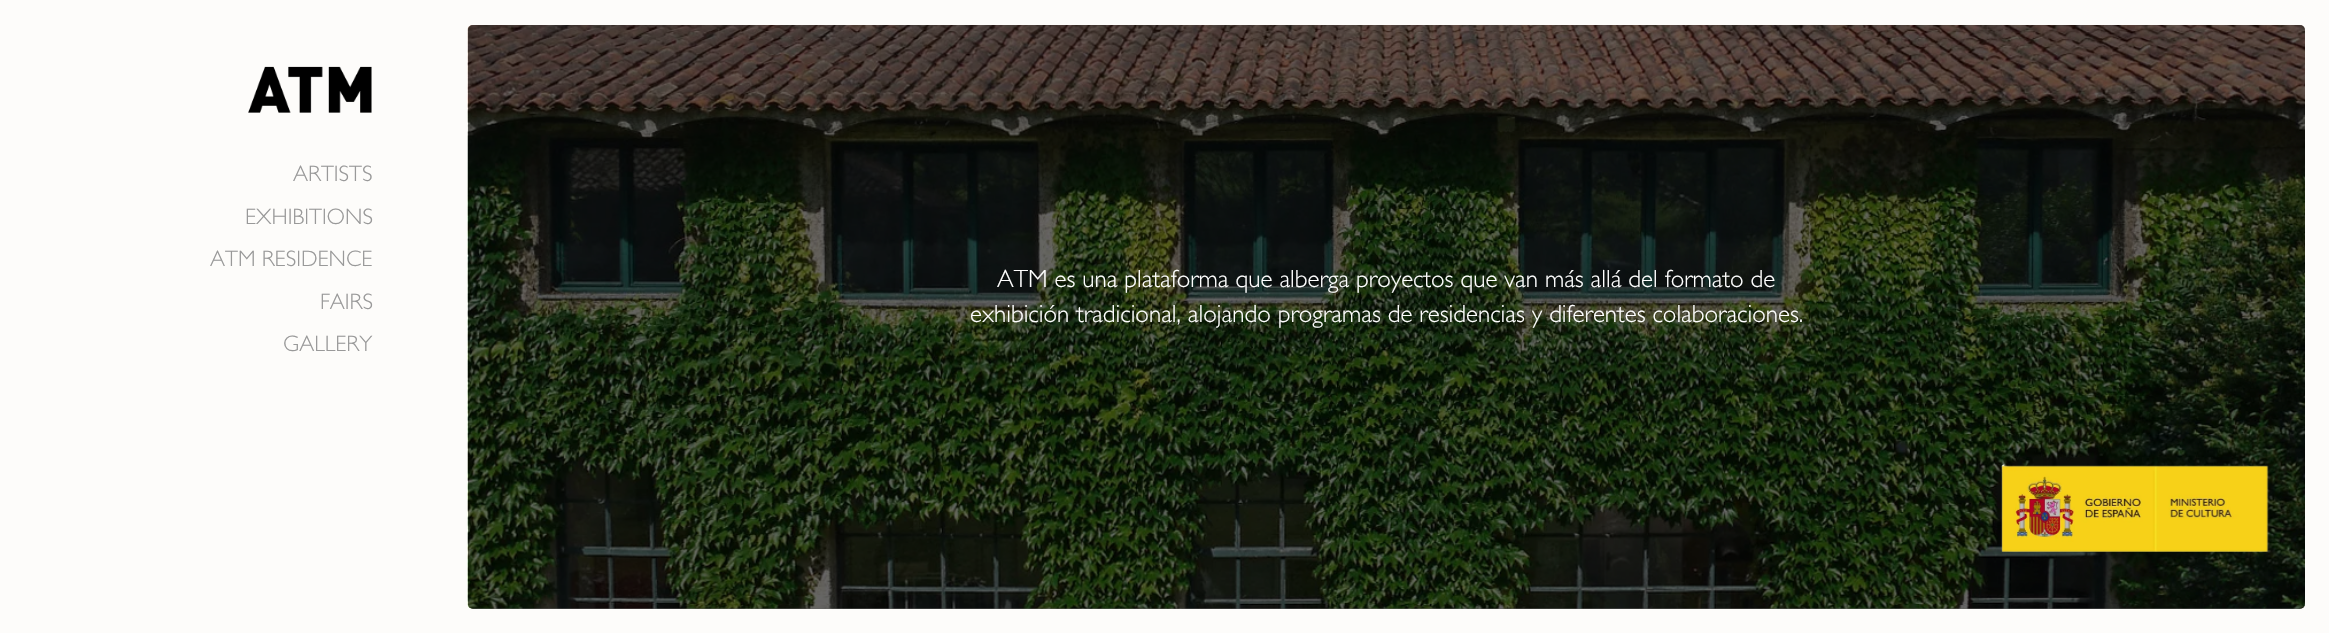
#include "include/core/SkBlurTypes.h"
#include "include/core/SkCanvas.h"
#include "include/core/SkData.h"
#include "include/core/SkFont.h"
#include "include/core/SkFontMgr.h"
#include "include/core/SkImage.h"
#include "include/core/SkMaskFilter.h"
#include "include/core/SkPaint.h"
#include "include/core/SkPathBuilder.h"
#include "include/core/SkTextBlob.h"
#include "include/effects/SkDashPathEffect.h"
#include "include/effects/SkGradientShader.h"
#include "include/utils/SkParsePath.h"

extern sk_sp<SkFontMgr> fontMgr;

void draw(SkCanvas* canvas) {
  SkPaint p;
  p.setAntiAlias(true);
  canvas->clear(SkColorSetRGB(253, 252, 250));
  canvas->drawImageRect(SkImages::DeferredFromEncodedData(SkData::MakeFromFileName("images/1.png")), SkRect::MakeLTRB(248, 66, 372, 113), SkSamplingOptions());
  canvas->drawImageRect(SkImages::DeferredFromEncodedData(SkData::MakeFromFileName("images/2.png")), SkRect::MakeLTRB(467, 25, 2305, 609), SkSamplingOptions());
  p.setColor(SkColorSetARGB(153, 0, 0, 0));
  canvas->drawRoundRect(SkRect::MakeLTRB(468, 25, 2305, 609), 5, 5, p);
  canvas->drawImageRect(SkImages::DeferredFromEncodedData(SkData::MakeFromFileName("images/3.png")), SkRect::MakeLTRB(2001, 464, 2269, 552), SkSamplingOptions());
  SkFont font1(fontMgr->matchFamilyStyle("Gill Sans", SkFontStyle(300, SkFontStyle::kNormal_Width, SkFontStyle::kUpright_Slant)), 22.5f);
  font1.setSubpixel(true);
  p.setColor(SkColorSetRGB(153, 153, 153));
  canvas->drawString("ARTISTS", 293, 181, font1, p);
  canvas->drawString("EXHIBITIONS", 245, 224, font1, p);
  canvas->drawString("ATM RESIDENCE", 210, 266, font1, p);
  canvas->drawString("FAIRS", 320, 309, font1, p);
  canvas->drawString("GALLERY", 283, 351, font1, p);
  SkFont font2(fontMgr->matchFamilyStyle("Gill Sans", SkFontStyle(300, SkFontStyle::kNormal_Width, SkFontStyle::kUpright_Slant)), 25);
  font2.setSubpixel(true);
  p.setColor(SK_ColorWHITE);
  canvas->drawString("ATM es una plataforma que alberga proyectos que van más allá del formato de", 997, 287, font2, p);
  canvas->drawString("exhibición tradicional, alojando programas de residencias y diferentes colaboraciones.", 970, 322, font2, p);
}
